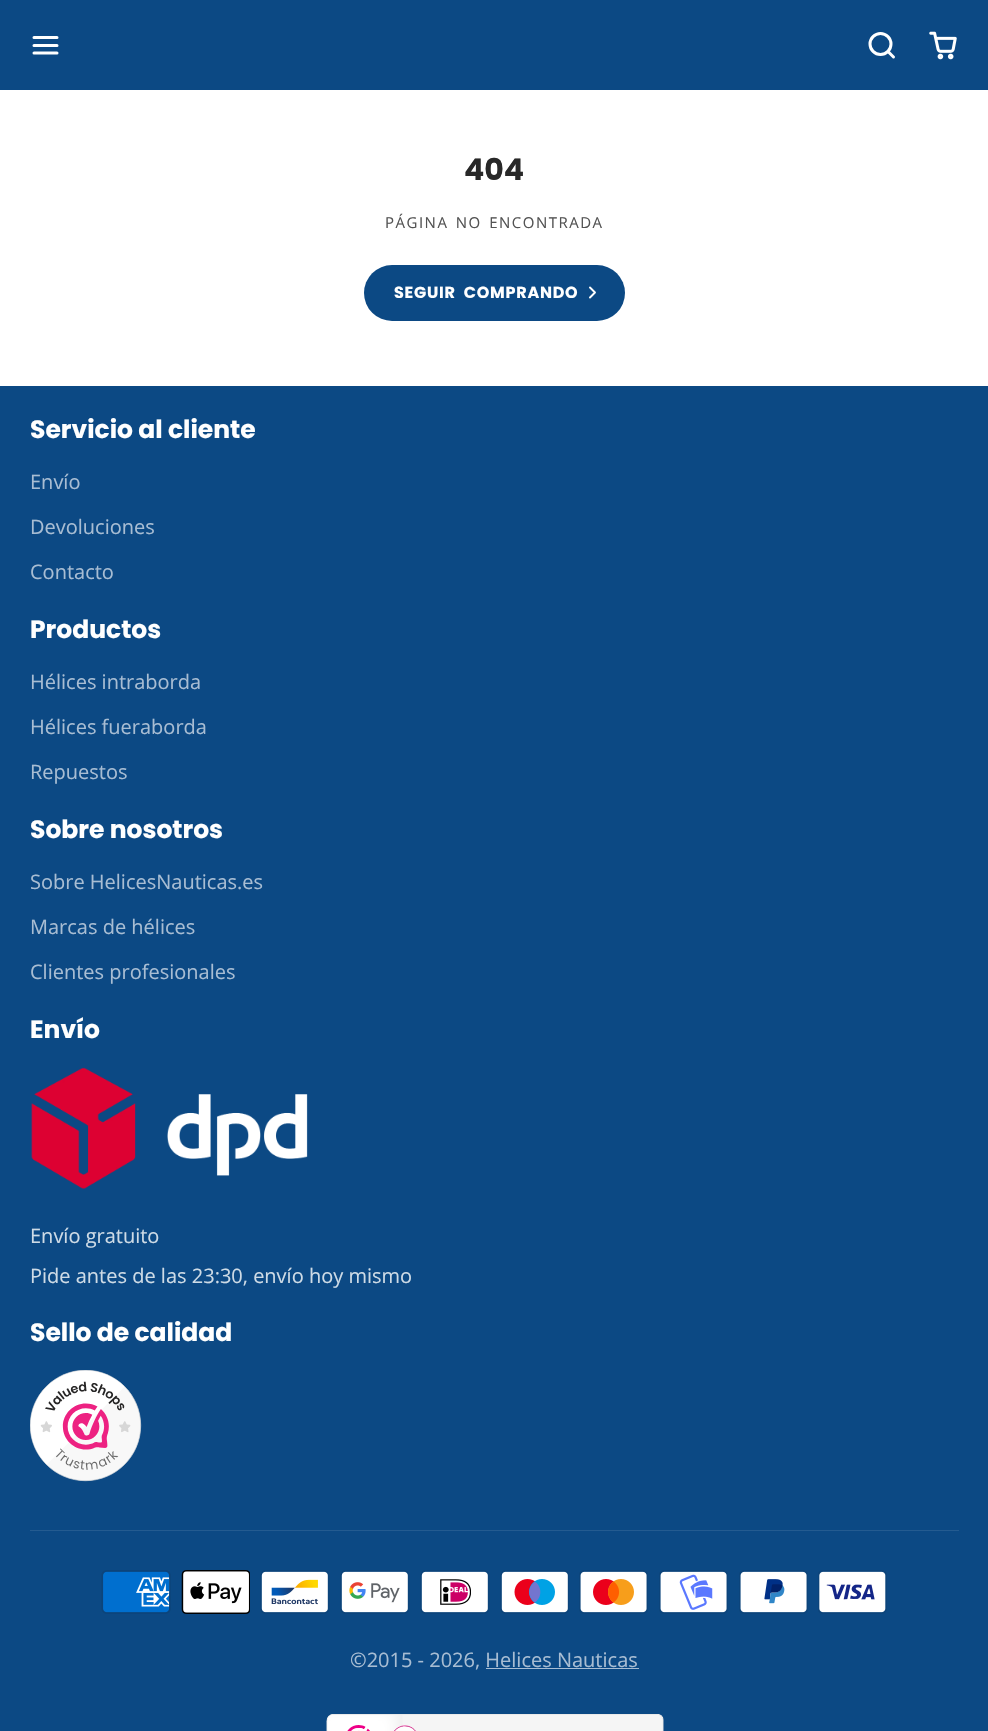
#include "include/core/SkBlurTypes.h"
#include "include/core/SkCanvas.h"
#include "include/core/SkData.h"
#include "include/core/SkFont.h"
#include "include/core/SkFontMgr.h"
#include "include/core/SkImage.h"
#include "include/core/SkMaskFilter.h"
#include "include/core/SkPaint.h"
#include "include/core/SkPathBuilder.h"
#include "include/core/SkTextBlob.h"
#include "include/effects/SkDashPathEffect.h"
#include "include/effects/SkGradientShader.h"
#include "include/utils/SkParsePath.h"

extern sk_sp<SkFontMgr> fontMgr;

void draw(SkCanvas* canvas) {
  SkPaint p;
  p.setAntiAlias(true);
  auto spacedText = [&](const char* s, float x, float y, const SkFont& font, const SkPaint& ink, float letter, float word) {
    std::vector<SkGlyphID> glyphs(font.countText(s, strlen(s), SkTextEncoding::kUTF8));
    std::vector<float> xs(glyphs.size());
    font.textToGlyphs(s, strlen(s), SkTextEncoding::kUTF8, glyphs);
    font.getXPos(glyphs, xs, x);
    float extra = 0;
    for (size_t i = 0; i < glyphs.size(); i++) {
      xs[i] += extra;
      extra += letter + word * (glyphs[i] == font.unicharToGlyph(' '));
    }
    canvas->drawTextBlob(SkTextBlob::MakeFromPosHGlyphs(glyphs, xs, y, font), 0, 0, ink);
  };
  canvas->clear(SK_ColorWHITE);
  p.setColor(SkColorSetRGB(12, 73, 132));
  canvas->drawRect(SkRect::MakeLTRB(0, 0, 988, 90), p);
  p.setStyle(SkPaint::kStroke_Style);
  p.setStrokeWidth(3);
  p.setStrokeCap(SkPaint::kRound_Cap);
  p.setStrokeJoin(SkPaint::kRound_Join);
  p.setColor(SK_ColorWHITE);
  canvas->drawPath(SkPathBuilder().moveTo(34, 45.5f).lineTo(57, 45.5f).moveTo(34, 37.5f).lineTo(57, 37.5f).moveTo(34, 53).lineTo(57, 53).detach(), p);
  p.setStrokeCap(SkPaint::kButt_Cap);
  p.setStrokeJoin(SkPaint::kMiter_Join);
  canvas->drawCircle(880.5f, 44, 10.5f, p);
  p.setStrokeCap(SkPaint::kRound_Cap);
  p.setStrokeJoin(SkPaint::kRound_Join);
  canvas->drawPath(SkPathBuilder().moveTo(893.5f, 57).lineTo(888, 51.5f).detach(), p);
  canvas->drawImageRect(SkImages::DeferredFromEncodedData(SkData::MakeFromFileName("images/1.png")), SkRect::MakeLTRB(929, 31, 957, 60), SkSamplingOptions());
  p.setStyle(SkPaint::kFill_Style);
  p.setColor(SkColorSetRGB(12, 73, 132));
  canvas->drawRoundRect(SkRect::MakeLTRB(364, 265, 625, 321), 28, 28, p);
  p.setStyle(SkPaint::kStroke_Style);
  p.setStrokeWidth(1.9f);
  p.setColor(SK_ColorWHITE);
  canvas->drawPath(SkPathBuilder().moveTo(590, 297.5f).lineTo(595, 292.5f).lineTo(590, 287.5f).detach(), p);
  p.setStyle(SkPaint::kFill_Style);
  p.setColor(SkColorSetRGB(12, 73, 132));
  canvas->drawRect(SkRect::MakeLTRB(0, 386, 988, 1731), p);
  canvas->drawImageRect(SkImages::DeferredFromEncodedData(SkData::MakeFromFileName("images/2.png")), SkRect::MakeLTRB(31, 1067, 308, 1189), SkSamplingOptions());
  canvas->drawImageRect(SkImages::DeferredFromEncodedData(SkData::MakeFromFileName("images/3.png")), SkRect::MakeLTRB(30, 1370, 142, 1482), SkSamplingOptions());
  p.setColor(SkColorSetRGB(36, 91, 144));
  canvas->drawRect(SkRect::MakeLTRB(30, 1530, 959, 1531), p);
  canvas->drawImageRect(SkImages::DeferredFromEncodedData(SkData::MakeFromFileName("images/4.png")), SkRect::MakeLTRB(101, 1570, 171, 1614), SkSamplingOptions());
  canvas->drawImageRect(SkImages::DeferredFromEncodedData(SkData::MakeFromFileName("images/5.png")), SkRect::MakeLTRB(181, 1570, 250, 1614), SkSamplingOptions());
  canvas->drawImageRect(SkImages::DeferredFromEncodedData(SkData::MakeFromFileName("images/6.png")), SkRect::MakeLTRB(260, 1570, 330, 1614), SkSamplingOptions());
  canvas->drawImageRect(SkImages::DeferredFromEncodedData(SkData::MakeFromFileName("images/7.png")), SkRect::MakeLTRB(340, 1570, 410, 1614), SkSamplingOptions());
  canvas->drawImageRect(SkImages::DeferredFromEncodedData(SkData::MakeFromFileName("images/8.png")), SkRect::MakeLTRB(420, 1570, 490, 1614), SkSamplingOptions());
  canvas->drawImageRect(SkImages::DeferredFromEncodedData(SkData::MakeFromFileName("images/9.png")), SkRect::MakeLTRB(500, 1570, 569, 1614), SkSamplingOptions());
  canvas->drawImageRect(SkImages::DeferredFromEncodedData(SkData::MakeFromFileName("images/10.png")), SkRect::MakeLTRB(579, 1570, 648, 1614), SkSamplingOptions());
  canvas->drawImageRect(SkImages::DeferredFromEncodedData(SkData::MakeFromFileName("images/11.png")), SkRect::MakeLTRB(659, 1570, 728, 1614), SkSamplingOptions());
  canvas->drawImageRect(SkImages::DeferredFromEncodedData(SkData::MakeFromFileName("images/12.png")), SkRect::MakeLTRB(739, 1570, 808, 1614), SkSamplingOptions());
  canvas->drawImageRect(SkImages::DeferredFromEncodedData(SkData::MakeFromFileName("images/13.png")), SkRect::MakeLTRB(818, 1570, 887, 1614), SkSamplingOptions());
  p.setColor(SkColorSetRGB(168, 189, 211));
  canvas->drawRect(SkRect::MakeLTRB(486, 1668, 639, 1669), p);
  canvas->drawImageRect(SkImages::DeferredFromEncodedData(SkData::MakeFromFileName("images/14.png")), SkRect::MakeLTRB(326, 1714, 664, 1731), SkSamplingOptions());
  SkFont font1(fontMgr->matchFamilyStyle("Poppins", SkFontStyle::Bold()), 30);
  font1.setSubpixel(true);
  p.setColor(SkColorSetRGB(40, 40, 40));
  canvas->drawString("404", 464, 180, font1, p);
  SkFont font2(fontMgr->matchFamilyStyle("Open Sans", SkFontStyle::Normal()), 15);
  font2.setSubpixel(true);
  p.setColor(SkColorSetRGB(83, 83, 83));
  spacedText("PÁGINA NO ENCONTRADA", 385, 228, font2, p, 1.5f, 2);
  SkFont font3(fontMgr->matchFamilyStyle("Poppins", SkFontStyle::Bold()), 16);
  font3.setSubpixel(true);
  p.setColor(SK_ColorWHITE);
  spacedText("SEGUIR COMPRANDO", 394, 298, font3, p, 0.75f, 4);
  SkFont font4(fontMgr->matchFamilyStyle("Poppins", SkFontStyle::Bold()), 25);
  font4.setSubpixel(true);
  canvas->drawString("Servicio al cliente", 30, 438, font4, p);
  SkFont font5(fontMgr->matchFamilyStyle("Open Sans", SkFontStyle::Normal()), 20);
  font5.setSubpixel(true);
  p.setColor(SkColorSetRGB(168, 189, 211));
  canvas->drawString("Envío", 30, 489, font5, p);
  canvas->drawString("Devoluciones", 30, 534, font5, p);
  canvas->drawString("Contacto", 30, 579, font5, p);
  p.setColor(SK_ColorWHITE);
  canvas->drawString("Productos", 30, 638, font4, p);
  p.setColor(SkColorSetRGB(168, 189, 211));
  canvas->drawString("Hélices intraborda", 30, 689, font5, p);
  canvas->drawString("Hélices fueraborda", 30, 734, font5, p);
  canvas->drawString("Repuestos", 30, 779, font5, p);
  p.setColor(SK_ColorWHITE);
  canvas->drawString("Sobre nosotros", 30, 838, font4, p);
  p.setColor(SkColorSetRGB(168, 189, 211));
  canvas->drawString("Sobre HelicesNauticas.es", 30, 889, font5, p);
  canvas->drawString("Marcas de hélices", 30, 934, font5, p);
  canvas->drawString("Clientes profesionales", 30, 979, font5, p);
  p.setColor(SK_ColorWHITE);
  canvas->drawString("Envío", 30, 1038, font4, p);
  p.setColor(SkColorSetRGB(206, 219, 230));
  canvas->drawString("Envío gratuito", 30, 1243, font5, p);
  canvas->drawString("Pide antes de las 23:30, envío hoy mismo", 30, 1283, font5, p);
  p.setColor(SK_ColorWHITE);
  canvas->drawString("Sello de calidad", 30, 1341, font4, p);
  p.setColor(SkColorSetRGB(168, 189, 211));
  canvas->drawString("©2015 - 2026, Helices Nauticas", 350, 1667, font5, p);
}
